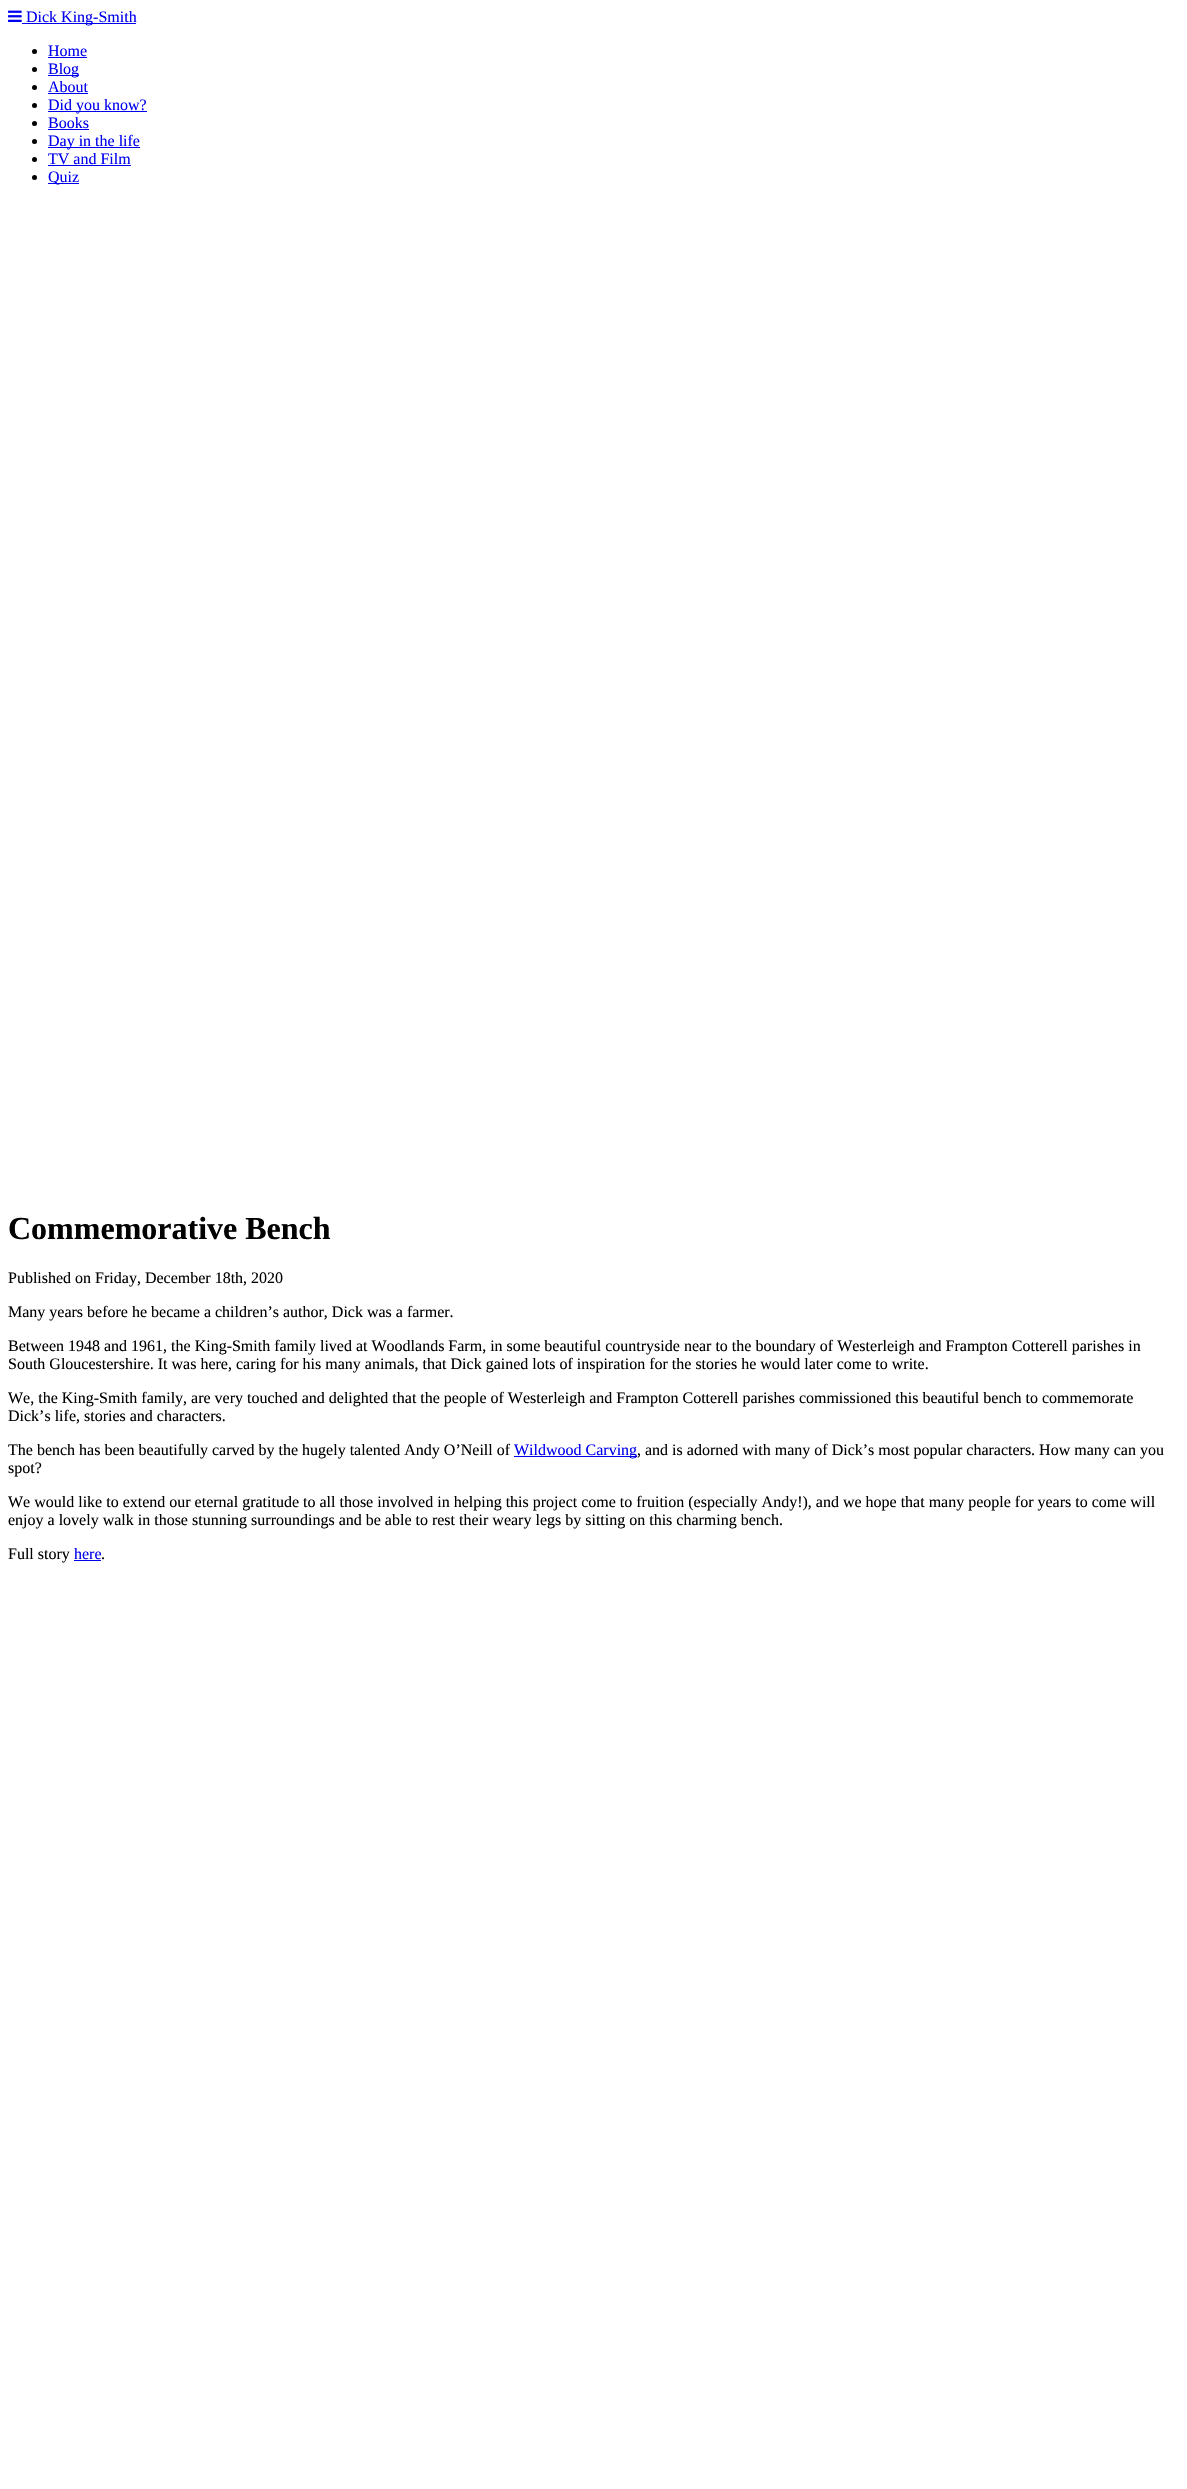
#include "include/core/SkBlurTypes.h"
#include "include/core/SkCanvas.h"
#include "include/core/SkData.h"
#include "include/core/SkFont.h"
#include "include/core/SkFontMgr.h"
#include "include/core/SkImage.h"
#include "include/core/SkMaskFilter.h"
#include "include/core/SkPaint.h"
#include "include/core/SkPathBuilder.h"
#include "include/core/SkTextBlob.h"
#include "include/effects/SkDashPathEffect.h"
#include "include/effects/SkGradientShader.h"
#include "include/utils/SkParsePath.h"

extern sk_sp<SkFontMgr> fontMgr;

void draw(SkCanvas* canvas) {
  SkPaint p;
  p.setAntiAlias(true);
  canvas->clear(SK_ColorWHITE);
  canvas->drawImageRect(SkImages::DeferredFromEncodedData(SkData::MakeFromFileName("images/1.png")), SkRect::MakeLTRB(8, 10, 22, 22), SkSamplingOptions());
  p.setColor(SkColorSetRGB(0, 0, 238));
  canvas->drawRect(SkRect::MakeLTRB(22, 23, 136, 24), p);
  p.setColor(SK_ColorBLACK);
  canvas->drawCircle(34.5f, 51.5f, 2.5f, p);
  p.setColor(SkColorSetRGB(0, 0, 238));
  canvas->drawRect(SkRect::MakeLTRB(48, 57, 87, 58), p);
  p.setColor(SK_ColorBLACK);
  canvas->drawCircle(34.5f, 69.5f, 2.5f, p);
  p.setColor(SkColorSetRGB(0, 0, 238));
  canvas->drawRect(SkRect::MakeLTRB(48, 75, 79, 76), p);
  p.setColor(SK_ColorBLACK);
  canvas->drawCircle(34.5f, 87.5f, 2.5f, p);
  p.setColor(SkColorSetRGB(0, 0, 238));
  canvas->drawRect(SkRect::MakeLTRB(48, 93, 88, 94), p);
  p.setColor(SK_ColorBLACK);
  canvas->drawCircle(34.5f, 105.5f, 2.5f, p);
  p.setColor(SkColorSetRGB(0, 0, 238));
  canvas->drawRect(SkRect::MakeLTRB(48, 111, 147, 112), p);
  p.setColor(SK_ColorBLACK);
  canvas->drawCircle(34.5f, 123.5f, 2.5f, p);
  p.setColor(SkColorSetRGB(0, 0, 238));
  canvas->drawRect(SkRect::MakeLTRB(48, 129, 89, 130), p);
  p.setColor(SK_ColorBLACK);
  canvas->drawCircle(34.5f, 141.5f, 2.5f, p);
  p.setColor(SkColorSetRGB(0, 0, 238));
  canvas->drawRect(SkRect::MakeLTRB(48, 147, 140, 148), p);
  p.setColor(SK_ColorBLACK);
  canvas->drawCircle(34.5f, 159.5f, 2.5f, p);
  p.setColor(SkColorSetRGB(0, 0, 238));
  canvas->drawRect(SkRect::MakeLTRB(48, 165, 131, 166), p);
  p.setColor(SK_ColorBLACK);
  canvas->drawCircle(34.5f, 177.5f, 2.5f, p);
  p.setColor(SkColorSetRGB(0, 0, 238));
  canvas->drawRect(SkRect::MakeLTRB(48, 183, 79, 184), p);
  canvas->drawRect(SkRect::MakeLTRB(514, 1456, 637, 1457), p);
  canvas->drawRect(SkRect::MakeLTRB(74, 1560, 101, 1561), p);
  SkFont font1(fontMgr->matchFamilyStyle("Liberation Serif", SkFontStyle::Normal()), 16);
  font1.setSubpixel(true);
  canvas->drawString("Dick King-Smith", 26, 22, font1, p);
  canvas->drawString("Home", 48, 56, font1, p);
  canvas->drawString("Blog", 48, 74, font1, p);
  canvas->drawString("About", 48, 92, font1, p);
  canvas->drawString("Did you know?", 48, 110, font1, p);
  canvas->drawString("Books", 48, 128, font1, p);
  canvas->drawString("Day in the life", 48, 146, font1, p);
  canvas->drawString("TV and Film", 48, 164, font1, p);
  canvas->drawString("Quiz", 48, 182, font1, p);
  SkFont font2(fontMgr->matchFamilyStyle("Liberation Serif", SkFontStyle::Bold()), 32);
  font2.setSubpixel(true);
  p.setColor(SK_ColorBLACK);
  canvas->drawString("Commemorative Bench", 8, 1239, font2, p);
  canvas->drawString("Published on Friday, December 18th, 2020", 8, 1283, font1, p);
  canvas->drawString("Many years before he became a children’s author, Dick was a farmer.", 8, 1317, font1, p);
  canvas->drawString("Between 1948 and 1961, the King-Smith family lived at Woodlands Farm, in some beautiful countryside near to the boundary of Westerleigh and Frampton Cotterell parishes in", 8, 1351, font1, p);
  canvas->drawString("South Gloucestershire. It was here, caring for his many animals, that Dick gained lots of inspiration for the stories he would later come to write.", 8, 1369, font1, p);
  canvas->drawString("We, the King-Smith family, are very touched and delighted that the people of Westerleigh and Frampton Cotterell parishes commissioned this beautiful bench to commemorate", 8, 1403, font1, p);
  canvas->drawString("Dick’s life, stories and characters.", 8, 1421, font1, p);
  canvas->drawString("The bench has been beautifully carved by the hugely talented Andy O’Neill of", 8, 1455, font1, p);
  p.setColor(SkColorSetRGB(0, 0, 238));
  canvas->drawString("Wildwood Carving", 514, 1455, font1, p);
  p.setColor(SK_ColorBLACK);
  canvas->drawString(", and is adorned with many of Dick’s most popular characters. How many can you", 637, 1455, font1, p);
  canvas->drawString("spot?", 8, 1473, font1, p);
  canvas->drawString("We would like to extend our eternal gratitude to all those involved in helping this project come to fruition (especially Andy!), and we hope that many people for years to come will", 8, 1507, font1, p);
  canvas->drawString("enjoy a lovely walk in those stunning surroundings and be able to rest their weary legs by sitting on this charming bench.", 8, 1525, font1, p);
  canvas->drawString("Full story", 8, 1559, font1, p);
  p.setColor(SkColorSetRGB(0, 0, 238));
  canvas->drawString("here", 74, 1559, font1, p);
  p.setColor(SK_ColorBLACK);
  canvas->drawString(".", 101, 1559, font1, p);
}
